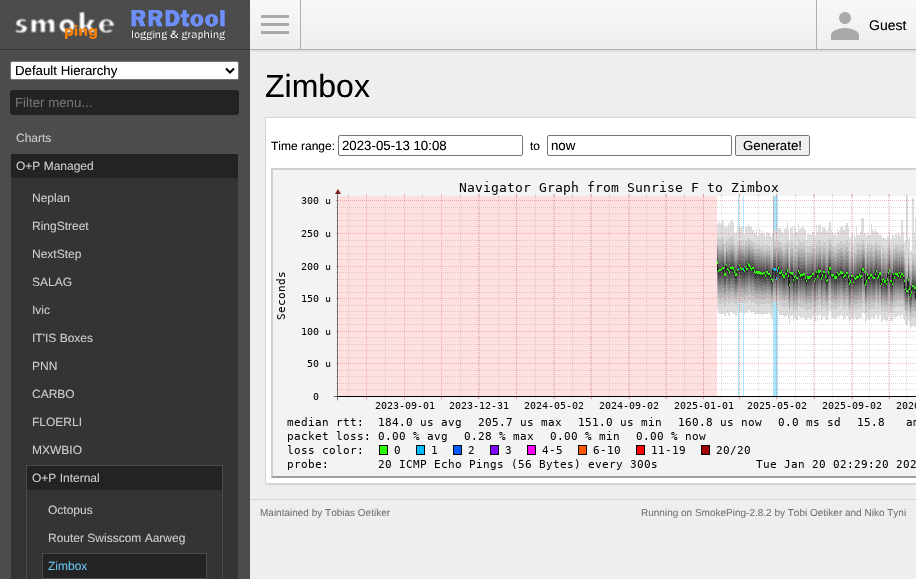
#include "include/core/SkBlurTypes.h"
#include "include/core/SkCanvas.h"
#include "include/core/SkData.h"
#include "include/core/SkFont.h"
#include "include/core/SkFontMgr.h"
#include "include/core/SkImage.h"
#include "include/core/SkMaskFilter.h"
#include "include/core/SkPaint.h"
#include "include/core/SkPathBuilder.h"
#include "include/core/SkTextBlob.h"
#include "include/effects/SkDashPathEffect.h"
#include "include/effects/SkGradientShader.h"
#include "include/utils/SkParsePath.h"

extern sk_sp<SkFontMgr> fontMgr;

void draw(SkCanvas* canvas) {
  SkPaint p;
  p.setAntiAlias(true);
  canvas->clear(SkColorSetRGB(238, 238, 238));
  p.setColor(SkColorSetRGB(76, 76, 76));
  canvas->drawRect(SkRect::MakeLTRB(0, 0, 250, 579), p);
  p.setColor(SkColorSetRGB(55, 55, 55));
  canvas->drawRect(SkRect::MakeLTRB(0, 49, 250, 50), p);
  p.setColor(SkColorSetARGB(13, 0, 0, 0));
  p.setMaskFilter(SkMaskFilter::MakeBlur(kNormal_SkBlurStyle, 0.5f));
  canvas->drawRect(SkRect::MakeLTRB(251, 4, 915, 52), p);
  p.setMaskFilter(nullptr);
  {
    const SkColor colors[] = {SkColorSetRGB(248, 248, 248), SkColorSetRGB(238, 238, 238)};
    const float stops[] = {0, 1};
    const SkPoint ends[] = {{583, 0}, {583, 49}};
    p.setShader(SkGradientShader::MakeLinear(ends, colors, stops, 2, SkTileMode::kClamp));
    p.setAlpha(255);
  }
  canvas->drawRect(SkRect::MakeLTRB(250, 0, 916, 49), p);
  p.setShader(nullptr);
  p.setColor(SkColorSetRGB(175, 175, 175));
  canvas->drawRect(SkRect::MakeLTRB(250, 49, 916, 50), p);
  canvas->drawRect(SkRect::MakeLTRB(300, 0, 301, 50), p);
  canvas->drawImageRect(SkImages::DeferredFromEncodedData(SkData::MakeFromFileName("images/1.png")), SkRect::MakeLTRB(261, 15, 289, 34), SkSamplingOptions());
  canvas->drawRect(SkRect::MakeLTRB(816, 0, 817, 50), p);
  canvas->drawImageRect(SkImages::DeferredFromEncodedData(SkData::MakeFromFileName("images/2.png")), SkRect::MakeLTRB(831, 12, 859, 40), SkSamplingOptions());
  canvas->drawImageRect(SkImages::DeferredFromEncodedData(SkData::MakeFromFileName("images/3.png")), SkRect::MakeLTRB(15, 11, 115, 39), SkSamplingOptions());
  canvas->drawImageRect(SkImages::DeferredFromEncodedData(SkData::MakeFromFileName("images/4.png")), SkRect::MakeLTRB(131, 10, 225, 40), SkSamplingOptions());
  p.setColor(SK_ColorWHITE);
  canvas->drawRoundRect(SkRect::MakeLTRB(10.5f, 61.5f, 238.5f, 79.5f), 1.5f, 1.5f, p);
  p.setStyle(SkPaint::kStroke_Style);
  p.setStrokeWidth(1);
  p.setColor(SkColorSetRGB(118, 118, 118));
  canvas->drawRoundRect(SkRect::MakeLTRB(10.5f, 61.5f, 238.5f, 79.5f), 1.5f, 1.5f, p);
  p.setStrokeWidth(2);
  p.setColor(SK_ColorBLACK);
  canvas->drawPath(SkPathBuilder().moveTo(226, 68.5f).lineTo(230, 72.5f).lineTo(234, 68.5f).detach(), p);
  p.setStyle(SkPaint::kFill_Style);
  p.setColor(SkColorSetRGB(35, 35, 35));
  canvas->drawRoundRect(SkRect::MakeLTRB(10, 90, 239, 115), 3, 3, p);
  canvas->drawRect(SkRect::MakeLTRB(11, 154, 238, 178), p);
  p.setColor(SkColorSetRGB(52, 52, 52));
  canvas->drawRect(SkRect::MakeLTRB(11, 178, 238, 579), p);
  p.setColor(SkColorSetRGB(35, 35, 35));
  canvas->drawRect(SkRect::MakeLTRB(27, 466, 222, 490), p);
  p.setStyle(SkPaint::kStroke_Style);
  p.setStrokeWidth(1);
  p.setColor(SkColorSetRGB(74, 74, 74));
  canvas->drawRect(SkRect::MakeLTRB(26.5f, 465.5f, 222.5f, 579.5f), p);
  p.setStyle(SkPaint::kFill_Style);
  p.setColor(SkColorSetRGB(35, 35, 35));
  canvas->drawRect(SkRect::MakeLTRB(42.5f, 553.5f, 206.5f, 578.5f), p);
  p.setStyle(SkPaint::kStroke_Style);
  p.setColor(SkColorSetRGB(74, 74, 74));
  canvas->drawRect(SkRect::MakeLTRB(42.5f, 553.5f, 206.5f, 578.5f), p);
  p.setStyle(SkPaint::kFill_Style);
  p.setColor(SkColorSetARGB(26, 0, 0, 0));
  p.setMaskFilter(SkMaskFilter::MakeBlur(kNormal_SkBlurStyle, 0.5f));
  canvas->drawRect(SkRect::MakeLTRB(266, 120, 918, 485), p);
  p.setMaskFilter(nullptr);
  p.setColor(SK_ColorWHITE);
  canvas->drawRect(SkRect::MakeLTRB(265.5f, 117.5f, 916.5f, 483.5f), p);
  p.setStyle(SkPaint::kStroke_Style);
  p.setColor(SkColorSetRGB(212, 212, 212));
  canvas->drawRect(SkRect::MakeLTRB(265.5f, 117.5f, 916.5f, 483.5f), p);
  p.setColor(SkColorSetRGB(118, 118, 118));
  canvas->drawRoundRect(SkRect::MakeLTRB(338.5f, 135.5f, 522.5f, 155.5f), 1.5f, 1.5f, p);
  canvas->drawRoundRect(SkRect::MakeLTRB(547.5f, 135.5f, 731.5f, 155.5f), 1.5f, 1.5f, p);
  p.setStyle(SkPaint::kFill_Style);
  p.setColor(SkColorSetRGB(239, 239, 239));
  canvas->drawRoundRect(SkRect::MakeLTRB(735.5f, 135.5f, 809.5f, 155.5f), 1.5f, 1.5f, p);
  p.setStyle(SkPaint::kStroke_Style);
  p.setColor(SkColorSetRGB(118, 118, 118));
  canvas->drawRoundRect(SkRect::MakeLTRB(735.5f, 135.5f, 809.5f, 155.5f), 1.5f, 1.5f, p);
  canvas->drawImageRect(SkImages::DeferredFromEncodedData(SkData::MakeFromFileName("images/5.png")), SkRect::MakeLTRB(271, 168, 916, 478), SkSamplingOptions());
  p.setStyle(SkPaint::kFill_Style);
  p.setColor(SkColorSetRGB(212, 212, 212));
  canvas->drawRect(SkRect::MakeLTRB(250, 499, 916, 500), p);
  SkFont font1(fontMgr->matchFamilyStyle("Liberation Sans", SkFontStyle::Normal()), 14);
  font1.setSubpixel(true);
  p.setColor(SK_ColorBLACK);
  canvas->drawString("Guest", 869, 30, font1, p);
  SkFont font2(fontMgr->matchFamilyStyle("Liberation Sans", SkFontStyle::Normal()), 13.25f);
  font2.setSubpixel(true);
  canvas->drawString("Default Hierarchy", 15, 75, font2, p);
  p.setColor(SkColorSetRGB(116, 116, 116));
  canvas->drawString("Filter menu...", 15, 107, font2, p);
  SkFont font3(fontMgr->matchFamilyStyle("Liberation Sans", SkFontStyle::Normal()), 12);
  font3.setSubpixel(true);
  p.setColor(SkColorSetRGB(204, 204, 204));
  canvas->drawString("Charts", 16, 142, font3, p);
  canvas->drawString("O+P Managed", 16, 170, font3, p);
  canvas->drawString("Neplan", 32, 202, font3, p);
  canvas->drawString("RingStreet", 32, 230, font3, p);
  canvas->drawString("NextStep", 32, 258, font3, p);
  canvas->drawString("SALAG", 32, 286, font3, p);
  canvas->drawString("Ivic", 32, 314, font3, p);
  canvas->drawString("IT'IS Boxes", 32, 342, font3, p);
  canvas->drawString("PNN", 32, 370, font3, p);
  canvas->drawString("CARBO", 32, 398, font3, p);
  canvas->drawString("FLOERLI", 32, 426, font3, p);
  canvas->drawString("MXWBIO", 32, 454, font3, p);
  canvas->drawString("O+P Internal", 32, 482, font3, p);
  canvas->drawString("Octopus", 48, 514, font3, p);
  canvas->drawString("Router Swisscom Aarweg", 48, 542, font3, p);
  p.setColor(SkColorSetRGB(103, 194, 239));
  canvas->drawString("Zimbox", 48, 570, font3, p);
  SkFont font4(fontMgr->matchFamilyStyle("Liberation Sans", SkFontStyle::Normal()), 32);
  font4.setSubpixel(true);
  p.setColor(SK_ColorBLACK);
  canvas->drawString("Zimbox", 265, 97, font4, p);
  canvas->drawString("Time range:", 271, 150, font3, p);
  canvas->drawString("2023-05-13 10:08", 342, 150, font2, p);
  canvas->drawString("to", 530, 150, font3, p);
  canvas->drawString("now", 551, 150, font2, p);
  canvas->drawString("Generate!", 743, 150, font2, p);
  SkFont font5(fontMgr->matchFamilyStyle("Liberation Sans", SkFontStyle::Normal()), 10);
  font5.setSubpixel(true);
  p.setColor(SkColorSetRGB(116, 116, 116));
  canvas->drawString("Maintained by Tobias Oetiker", 260, 516, font5, p);
  canvas->drawString("Running on SmokePing-2.8.2 by Tobi Oetiker and Niko Tyni", 641, 516, font5, p);
}
